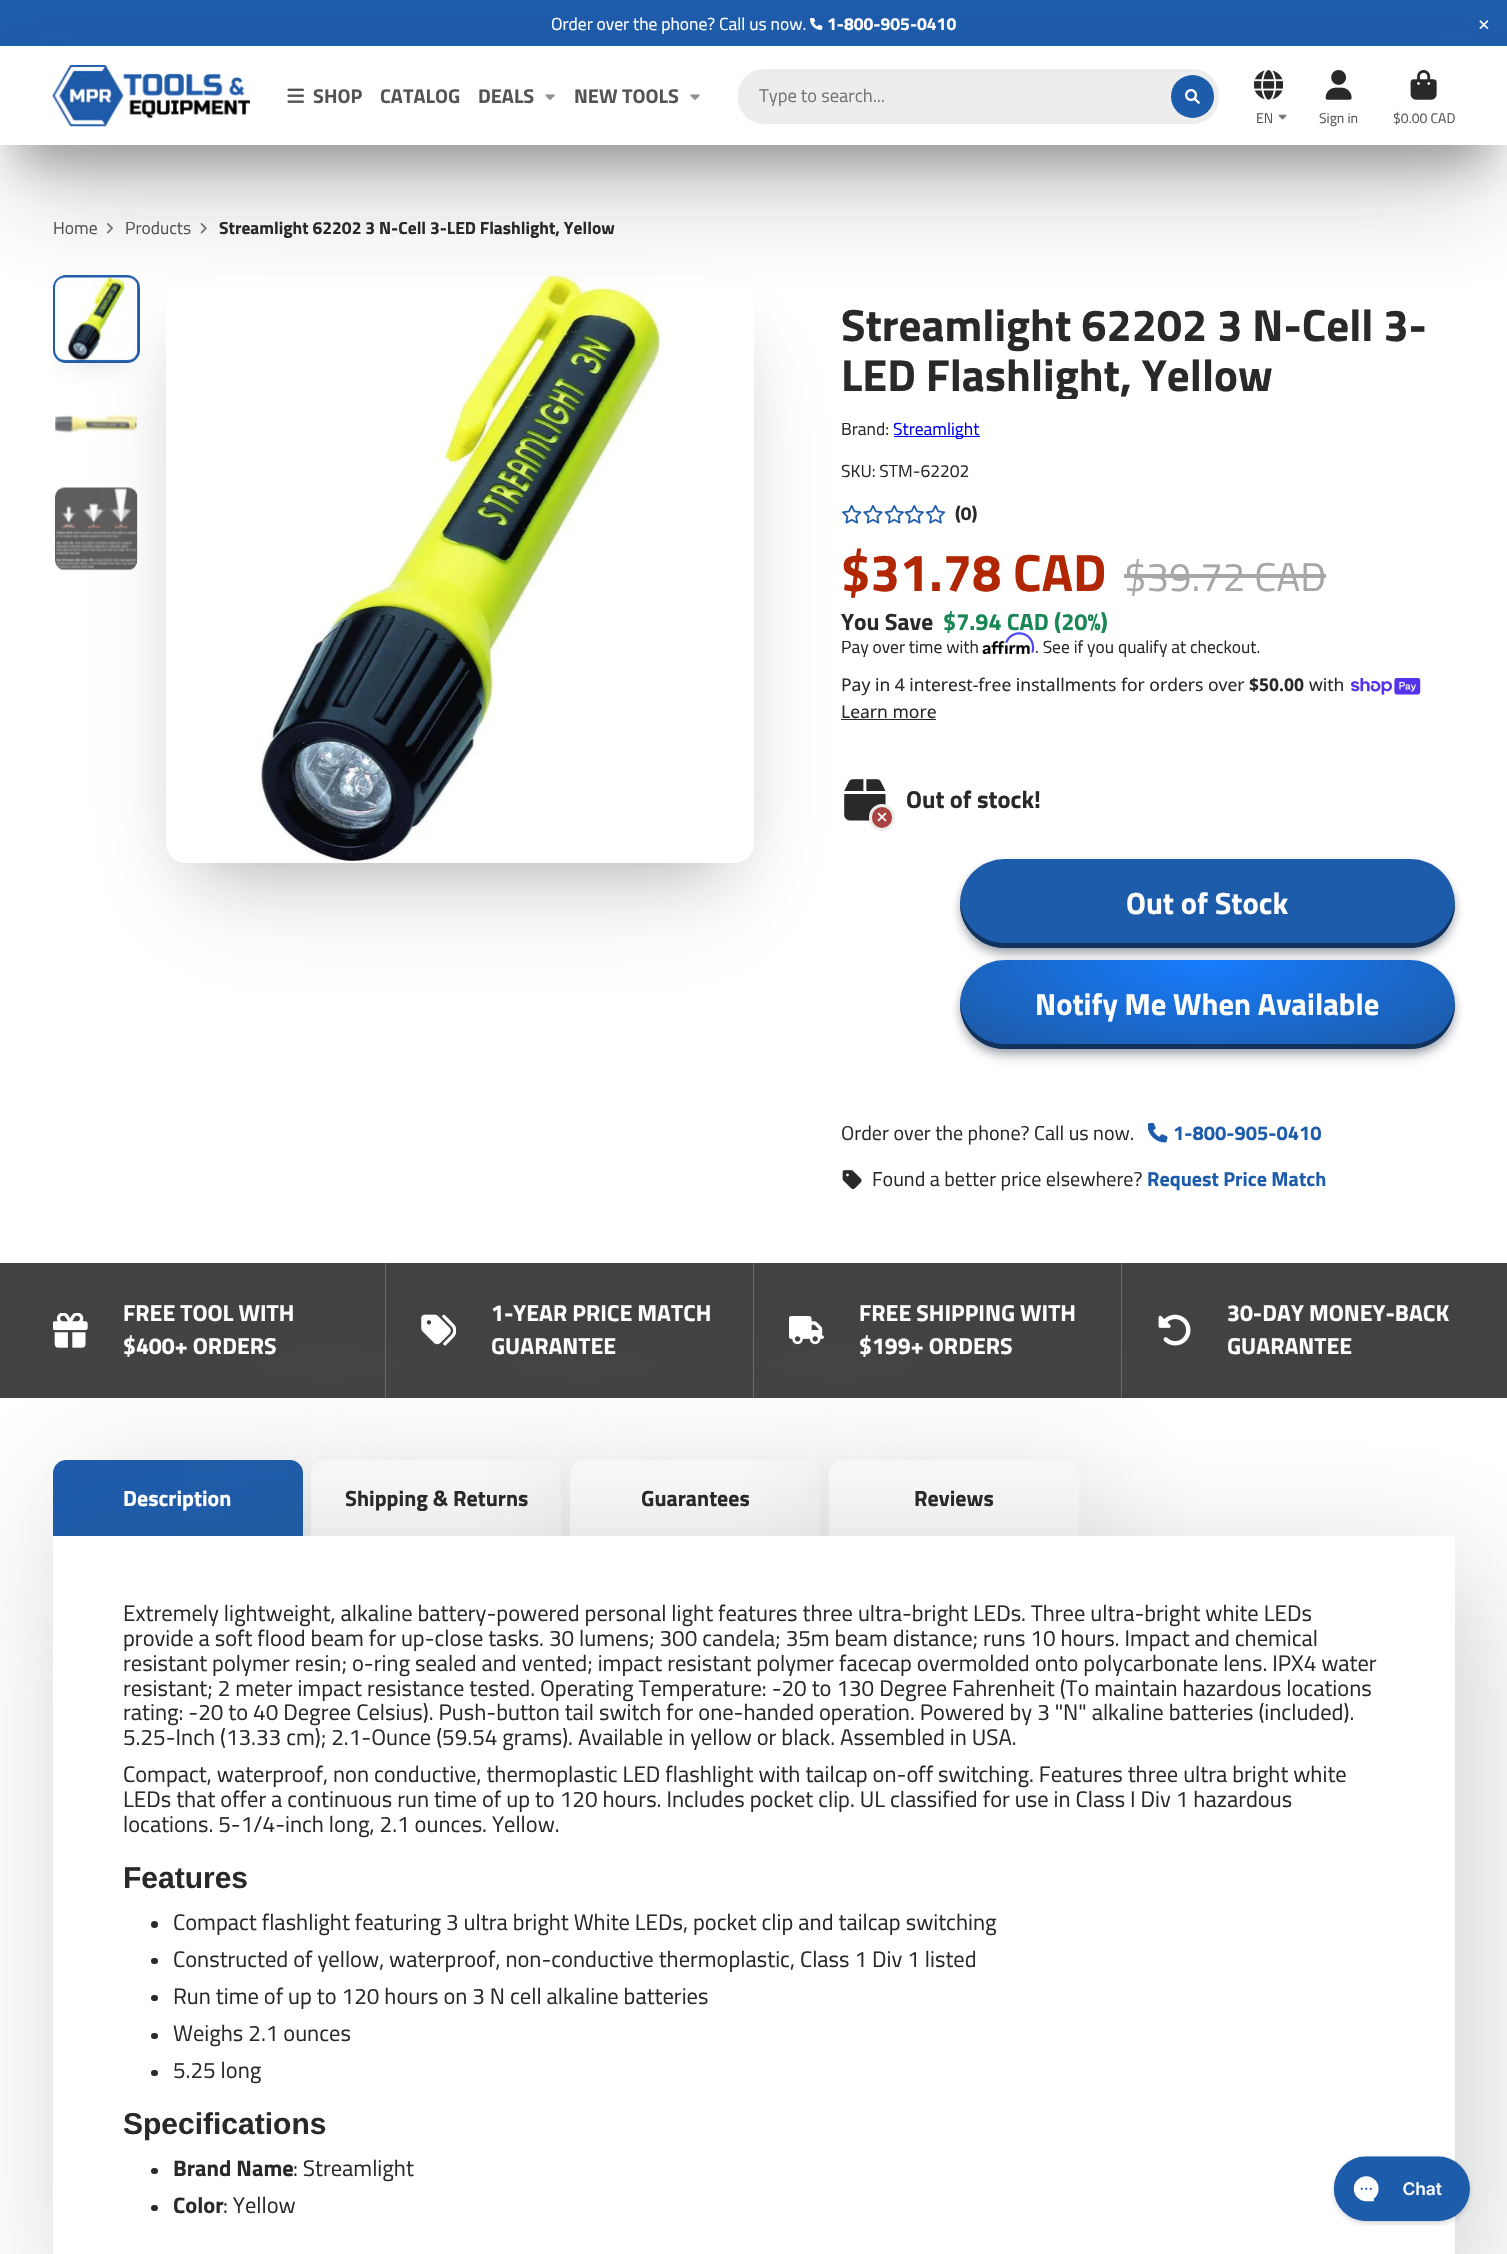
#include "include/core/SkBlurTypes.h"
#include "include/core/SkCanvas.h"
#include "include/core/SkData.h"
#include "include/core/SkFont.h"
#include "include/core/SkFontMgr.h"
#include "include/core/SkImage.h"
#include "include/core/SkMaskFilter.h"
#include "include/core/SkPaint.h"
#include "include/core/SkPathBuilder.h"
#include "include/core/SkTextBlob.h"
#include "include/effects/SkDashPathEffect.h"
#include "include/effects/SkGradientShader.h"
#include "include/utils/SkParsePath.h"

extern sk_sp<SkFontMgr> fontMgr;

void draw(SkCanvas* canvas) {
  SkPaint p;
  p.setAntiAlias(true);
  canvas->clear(SK_ColorWHITE);
  p.setColor(SkColorSetRGB(29, 92, 171));
  canvas->drawRect(SkRect::MakeLTRB(0, 0, 1507, 46), p);
  canvas->drawImageRect(SkImages::DeferredFromEncodedData(SkData::MakeFromFileName("images/1.png")), SkRect::MakeLTRB(810, 18, 823, 30), SkSamplingOptions());
  canvas->drawImageRect(SkImages::DeferredFromEncodedData(SkData::MakeFromFileName("images/10.png")), SkRect::MakeLTRB(106, 223, 113, 234), SkSamplingOptions());
  canvas->drawImageRect(SkImages::DeferredFromEncodedData(SkData::MakeFromFileName("images/11.png")), SkRect::MakeLTRB(200, 223, 207, 234), SkSamplingOptions());
  p.setColor(SkColorSetARGB(102, 28, 28, 28));
  p.setMaskFilter(SkMaskFilter::MakeBlur(kNormal_SkBlurStyle, 24));
  canvas->drawRect(SkRect::MakeLTRB(18, 96, 1490, 160), p);
  p.setMaskFilter(nullptr);
  canvas->save();
  canvas->clipRect(SkRect::MakeLTRB(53, 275, 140, 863));
  p.setColor(SkColorSetARGB(77, 28, 28, 28));
  p.setMaskFilter(SkMaskFilter::MakeBlur(kNormal_SkBlurStyle, 17.5f));
  canvas->drawRect(SkRect::MakeLTRB(70, 301, 123, 354), p);
  p.setMaskFilter(nullptr);
  canvas->restore();
  p.setStyle(SkPaint::kStroke_Style);
  p.setStrokeWidth(3);
  p.setColor(SkColorSetRGB(29, 92, 171));
  canvas->drawRoundRect(SkRect::MakeLTRB(54.5f, 276.5f, 138.5f, 361.5f), 11.5f, 11.5f, p);
  canvas->drawImageRect(SkImages::DeferredFromEncodedData(SkData::MakeFromFileName("images/13.png")), SkRect::MakeLTRB(55, 277, 138, 361), SkSamplingOptions());
  canvas->drawImageRect(SkImages::DeferredFromEncodedData(SkData::MakeFromFileName("images/14.png")), SkRect::MakeLTRB(55, 414, 138, 433), SkSamplingOptions());
  canvas->drawImageRect(SkImages::DeferredFromEncodedData(SkData::MakeFromFileName("images/15.png")), SkRect::MakeLTRB(55, 487, 138, 571), SkSamplingOptions());
  canvas->save();
  canvas->clipPath(SkPathBuilder(SkPathFillType::kEvenOdd).moveTo(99, 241).lineTo(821, 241).lineTo(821, 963).lineTo(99, 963).close().moveTo(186, 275).lineTo(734, 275).cubicTo(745, 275, 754, 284, 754, 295).lineTo(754, 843).cubicTo(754, 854, 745, 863, 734, 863).lineTo(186, 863).cubicTo(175, 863, 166, 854, 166, 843).lineTo(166, 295).cubicTo(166, 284, 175, 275, 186, 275).close().detach(), true);
  p.setStyle(SkPaint::kFill_Style);
  p.setColor(SkColorSetARGB(77, 28, 28, 28));
  p.setMaskFilter(SkMaskFilter::MakeBlur(kNormal_SkBlurStyle, 33));
  canvas->drawRect(SkRect::MakeLTRB(199, 341, 721, 863), p);
  p.setMaskFilter(nullptr);
  canvas->restore();
  canvas->save();
  canvas->clipPath(SkPathBuilder(SkPathFillType::kEvenOdd).moveTo(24, 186).lineTo(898, 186).lineTo(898, 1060).lineTo(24, 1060).close().moveTo(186, 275).lineTo(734, 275).cubicTo(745, 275, 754, 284, 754, 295).lineTo(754, 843).cubicTo(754, 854, 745, 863, 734, 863).lineTo(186, 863).cubicTo(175, 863, 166, 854, 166, 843).lineTo(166, 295).cubicTo(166, 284, 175, 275, 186, 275).close().detach(), true);
  p.setColor(SkColorSetARGB(26, 28, 28, 28));
  p.setMaskFilter(SkMaskFilter::MakeBlur(kNormal_SkBlurStyle, 54.5f));
  canvas->drawRect(SkRect::MakeLTRB(189, 351, 733, 895), p);
  p.setMaskFilter(nullptr);
  canvas->restore();
  canvas->drawImageRect(SkImages::DeferredFromEncodedData(SkData::MakeFromFileName("images/12.png")), SkRect::MakeLTRB(166, 275, 675, 863), SkSamplingOptions());
  p.setColor(SkColorSetARGB(77, 28, 28, 28));
  p.setMaskFilter(SkMaskFilter::MakeBlur(kNormal_SkBlurStyle, 54.5f));
  canvas->drawRect(SkRect::MakeLTRB(18, 119, 1490, 183), p);
  p.setMaskFilter(nullptr);
  p.setColor(SK_ColorWHITE);
  canvas->drawRect(SkRect::MakeLTRB(0, 46, 1507, 145), p);
  canvas->drawImageRect(SkImages::DeferredFromEncodedData(SkData::MakeFromFileName("images/2.png")), SkRect::MakeLTRB(52, 65, 250, 127), SkSamplingOptions());
  canvas->drawImageRect(SkImages::DeferredFromEncodedData(SkData::MakeFromFileName("images/3.png")), SkRect::MakeLTRB(287, 88, 304, 103), SkSamplingOptions());
  canvas->drawImageRect(SkImages::DeferredFromEncodedData(SkData::MakeFromFileName("images/4.png")), SkRect::MakeLTRB(545, 94, 555, 100), SkSamplingOptions());
  canvas->drawImageRect(SkImages::DeferredFromEncodedData(SkData::MakeFromFileName("images/4.png")), SkRect::MakeLTRB(690, 94, 700, 100), SkSamplingOptions());
  p.setColor(SkColorSetRGB(237, 237, 237));
  canvas->drawRoundRect(SkRect::MakeLTRB(738, 69, 1219, 124), 26, 26, p);
  p.setColor(SkColorSetRGB(29, 92, 171));
  canvas->drawCircle(1192.5f, 96.5f, 21.5f, p);
  canvas->drawImageRect(SkImages::DeferredFromEncodedData(SkData::MakeFromFileName("images/5.png")), SkRect::MakeLTRB(1185, 89, 1200, 104), SkSamplingOptions());
  canvas->drawImageRect(SkImages::DeferredFromEncodedData(SkData::MakeFromFileName("images/6.png")), SkRect::MakeLTRB(1254, 70, 1283, 100), SkSamplingOptions());
  canvas->drawImageRect(SkImages::DeferredFromEncodedData(SkData::MakeFromFileName("images/7.png")), SkRect::MakeLTRB(1278, 114, 1287, 120), SkSamplingOptions());
  canvas->drawImageRect(SkImages::DeferredFromEncodedData(SkData::MakeFromFileName("images/8.png")), SkRect::MakeLTRB(1325, 70, 1352, 100), SkSamplingOptions());
  canvas->drawImageRect(SkImages::DeferredFromEncodedData(SkData::MakeFromFileName("images/9.png")), SkRect::MakeLTRB(1410, 70, 1437, 100), SkSamplingOptions());
  p.setColor(SkColorSetRGB(0, 0, 238));
  canvas->drawRect(SkRect::MakeLTRB(894, 436, 980, 437), p);
  canvas->drawImageRect(SkImages::DeferredFromEncodedData(SkData::MakeFromFileName("images/16.png")), SkRect::MakeLTRB(842, 504, 862, 524), SkSamplingOptions());
  canvas->drawImageRect(SkImages::DeferredFromEncodedData(SkData::MakeFromFileName("images/17.png")), SkRect::MakeLTRB(863, 505, 883, 524), SkSamplingOptions());
  canvas->drawImageRect(SkImages::DeferredFromEncodedData(SkData::MakeFromFileName("images/18.png")), SkRect::MakeLTRB(884, 504, 904, 524), SkSamplingOptions());
  canvas->drawImageRect(SkImages::DeferredFromEncodedData(SkData::MakeFromFileName("images/19.png")), SkRect::MakeLTRB(904, 504, 924, 524), SkSamplingOptions());
  canvas->drawImageRect(SkImages::DeferredFromEncodedData(SkData::MakeFromFileName("images/20.png")), SkRect::MakeLTRB(925, 504, 946, 524), SkSamplingOptions());
  p.setColor(SkColorSetRGB(167, 167, 167));
  canvas->drawRect(SkRect::MakeLTRB(1124, 574, 1326, 578), p);
  canvas->drawImageRect(SkImages::DeferredFromEncodedData(SkData::MakeFromFileName("images/22.png")), SkRect::MakeLTRB(982, 641, 1030, 655), SkSamplingOptions());
  canvas->drawImageRect(SkImages::DeferredFromEncodedData(SkData::MakeFromFileName("images/23.png")), SkRect::MakeLTRB(1351, 678, 1421, 695), SkSamplingOptions());
  p.setColor(SkColorSetRGB(41, 41, 41));
  canvas->drawRect(SkRect::MakeLTRB(841, 719, 936, 720), p);
  canvas->drawImageRect(SkImages::DeferredFromEncodedData(SkData::MakeFromFileName("images/24.png")), SkRect::MakeLTRB(844, 779, 886, 821), SkSamplingOptions());
  p.setColor(SkColorSetRGB(169, 68, 66));
  canvas->drawRoundRect(SkRect::MakeLTRB(870.5f, 805.5f, 893.5f, 829.5f), 11.5f, 11.5f, p);
  p.setStyle(SkPaint::kStroke_Style);
  p.setColor(SkColorSetRGB(237, 237, 237));
  canvas->drawRoundRect(SkRect::MakeLTRB(870.5f, 805.5f, 893.5f, 829.5f), 11.5f, 11.5f, p);
  canvas->drawImageRect(SkImages::DeferredFromEncodedData(SkData::MakeFromFileName("images/25.png")), SkRect::MakeLTRB(877, 812, 887, 822), SkSamplingOptions());
  p.setStyle(SkPaint::kFill_Style);
  p.setColor(SkColorSetARGB(38, 7, 22, 40));
  p.setMaskFilter(SkMaskFilter::MakeBlur(kNormal_SkBlurStyle, 9));
  canvas->drawRoundRect(SkRect::MakeLTRB(965, 873, 1450, 953), 40, 40, p);
  p.setMaskFilter(nullptr);
  p.setColor(SkColorSetARGB(77, 7, 22, 40));
  p.setMaskFilter(SkMaskFilter::MakeBlur(kNormal_SkBlurStyle, 4.5f));
  canvas->drawRoundRect(SkRect::MakeLTRB(960, 864, 1455, 953), 44.5f, 44.5f, p);
  p.setMaskFilter(nullptr);
  p.setColor(SkColorSetRGB(29, 92, 171));
  canvas->drawRoundRect(SkRect::MakeLTRB(960, 859, 1455, 948), 44.5f, 44.5f, p);
  p.setColor(SkColorSetRGB(16, 50, 93));
  canvas->drawPath(SkPathBuilder().moveTo(960, 901).lineTo(960, 904).cubicTo(960, 928, 980, 948, 1004, 948).lineTo(1410, 948).cubicTo(1435, 948, 1455, 928, 1455, 904).lineTo(1455, 901).cubicTo(1454, 924, 1434, 943, 1411, 943).lineTo(1004, 943).cubicTo(981, 943, 961, 924, 960, 901).close().detach(), p);
  p.setColor(SkColorSetARGB(38, 7, 22, 40));
  p.setMaskFilter(SkMaskFilter::MakeBlur(kNormal_SkBlurStyle, 9));
  canvas->drawRoundRect(SkRect::MakeLTRB(965, 974, 1450, 1054), 40, 40, p);
  p.setMaskFilter(nullptr);
  p.setColor(SkColorSetARGB(77, 7, 22, 40));
  p.setMaskFilter(SkMaskFilter::MakeBlur(kNormal_SkBlurStyle, 4.5f));
  canvas->drawRoundRect(SkRect::MakeLTRB(960, 965, 1455, 1054), 44.5f, 44.5f, p);
  p.setMaskFilter(nullptr);
  canvas->save();
  canvas->clipPath(SkPathBuilder().moveTo(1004.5f, 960).lineTo(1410.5f, 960).cubicTo(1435, 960, 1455, 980, 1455, 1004.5f).cubicTo(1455, 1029, 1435, 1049, 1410.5f, 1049).lineTo(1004.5f, 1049).cubicTo(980, 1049, 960, 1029, 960, 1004.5f).cubicTo(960, 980, 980, 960, 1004.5f, 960).close().detach(), true);
  p.setColor(SkColorSetARGB(38, 7, 22, 40));
  p.setMaskFilter(SkMaskFilter::MakeBlur(kNormal_SkBlurStyle, 9));
  canvas->drawRoundRect(SkRect::MakeLTRB(965, 974, 1450, 1054), 40, 40, p);
  p.setMaskFilter(nullptr);
  p.setColor(SkColorSetARGB(77, 7, 22, 40));
  p.setMaskFilter(SkMaskFilter::MakeBlur(kNormal_SkBlurStyle, 4.5f));
  canvas->drawRoundRect(SkRect::MakeLTRB(960, 965, 1455, 1054), 44.5f, 44.5f, p);
  p.setMaskFilter(nullptr);
  canvas->restore();
  {
    const SkColor colors[] = {SkColorSetRGB(22, 125, 255), SkColorSetRGB(29, 92, 171)};
    const float stops[] = {0, 0.9f};
    SkMatrix m = SkMatrix::Translate(1208, 960).preScale(350, 126);
    p.setShader(SkGradientShader::MakeRadial({0, 0}, 1, colors, stops, 2, SkTileMode::kClamp, 0, &m));
    p.setAlpha(255);
  }
  canvas->drawRoundRect(SkRect::MakeLTRB(960, 960, 1455, 1049), 44.5f, 44.5f, p);
  p.setShader(nullptr);
  p.setColor(SkColorSetRGB(16, 50, 93));
  canvas->drawPath(SkPathBuilder().moveTo(960, 1002).lineTo(960, 1004).cubicTo(960, 1029, 980, 1049, 1004, 1049).lineTo(1410, 1049).cubicTo(1435, 1049, 1455, 1029, 1455, 1004).lineTo(1455, 1002).cubicTo(1454, 1025, 1434, 1044, 1411, 1044).lineTo(1004, 1044).cubicTo(981, 1044, 961, 1025, 960, 1002).close().detach(), p);
  canvas->drawImageRect(SkImages::DeferredFromEncodedData(SkData::MakeFromFileName("images/26.png")), SkRect::MakeLTRB(1148, 1123, 1168, 1143), SkSamplingOptions());
  canvas->drawImageRect(SkImages::DeferredFromEncodedData(SkData::MakeFromFileName("images/27.png")), SkRect::MakeLTRB(842, 1170, 862, 1189), SkSamplingOptions());
  p.setColor(SkColorSetRGB(66, 66, 66));
  canvas->drawRect(SkRect::MakeLTRB(0, 1263, 1507, 1398), p);
  p.setColor(SkColorSetARGB(64, 50, 62, 72));
  p.setMaskFilter(SkMaskFilter::MakeBlur(kNormal_SkBlurStyle, 65));
  canvas->drawRoundRect(SkRect::MakeLTRB(70, 1491, 320, 1568), 13, 13, p);
  p.setMaskFilter(nullptr);
  canvas->drawImageRect(SkImages::DeferredFromEncodedData(SkData::MakeFromFileName("images/28.png")), SkRect::MakeLTRB(53, 1313, 88, 1348), SkSamplingOptions());
  p.setColor(SkColorSetRGB(29, 92, 171));
  canvas->drawPath(SkPathBuilder().moveTo(66, 1460).lineTo(290, 1460).cubicTo(297, 1460, 303, 1466, 303, 1473).lineTo(303, 1536).lineTo(53, 1536).lineTo(53, 1473).cubicTo(53, 1466, 59, 1460, 66, 1460).close().detach(), p);
  p.setColor(SkColorSetARGB(64, 50, 62, 72));
  p.setMaskFilter(SkMaskFilter::MakeBlur(kNormal_SkBlurStyle, 65));
  canvas->drawRoundRect(SkRect::MakeLTRB(329, 1491, 579, 1568), 13, 13, p);
  p.setMaskFilter(nullptr);
  p.setColor(SkColorSetRGB(104, 104, 104));
  canvas->drawRect(SkRect::MakeLTRB(385, 1263, 386, 1398), p);
  p.setColor(SkColorSetRGB(249, 249, 249));
  canvas->drawPath(SkPathBuilder().moveTo(324, 1460).lineTo(548, 1460).cubicTo(555, 1460, 561, 1466, 561, 1473).lineTo(561, 1536).lineTo(311, 1536).lineTo(311, 1473).cubicTo(311, 1466, 317, 1460, 324, 1460).close().detach(), p);
  p.setColor(SkColorSetARGB(64, 50, 62, 72));
  p.setMaskFilter(SkMaskFilter::MakeBlur(kNormal_SkBlurStyle, 65));
  canvas->drawRoundRect(SkRect::MakeLTRB(588, 1491, 838, 1568), 13, 13, p);
  p.setMaskFilter(nullptr);
  canvas->drawImageRect(SkImages::DeferredFromEncodedData(SkData::MakeFromFileName("images/29.png")), SkRect::MakeLTRB(421, 1314, 456, 1346), SkSamplingOptions());
  p.setColor(SkColorSetRGB(249, 249, 249));
  canvas->drawPath(SkPathBuilder().moveTo(583, 1460).lineTo(807, 1460).cubicTo(814, 1460, 820, 1466, 820, 1473).lineTo(820, 1536).lineTo(570, 1536).lineTo(570, 1473).cubicTo(570, 1466, 576, 1460, 583, 1460).close().detach(), p);
  p.setColor(SkColorSetARGB(64, 50, 62, 72));
  p.setMaskFilter(SkMaskFilter::MakeBlur(kNormal_SkBlurStyle, 65));
  canvas->drawRoundRect(SkRect::MakeLTRB(846, 1491, 1096, 1568), 13, 13, p);
  p.setMaskFilter(nullptr);
  p.setColor(SkColorSetRGB(104, 104, 104));
  canvas->drawRect(SkRect::MakeLTRB(753, 1263, 754, 1398), p);
  canvas->drawImageRect(SkImages::DeferredFromEncodedData(SkData::MakeFromFileName("images/30.png")), SkRect::MakeLTRB(789, 1316, 824, 1345), SkSamplingOptions());
  canvas->drawRect(SkRect::MakeLTRB(1121, 1263, 1122, 1398), p);
  canvas->drawImageRect(SkImages::DeferredFromEncodedData(SkData::MakeFromFileName("images/31.png")), SkRect::MakeLTRB(1158, 1314, 1191, 1346), SkSamplingOptions());
  p.setColor(SkColorSetRGB(249, 249, 249));
  canvas->drawPath(SkPathBuilder().moveTo(842, 1460).lineTo(1066, 1460).cubicTo(1073, 1460, 1079, 1466, 1079, 1473).lineTo(1079, 1536).lineTo(829, 1536).lineTo(829, 1473).cubicTo(829, 1466, 835, 1460, 842, 1460).close().detach(), p);
  p.setColor(SkColorSetARGB(64, 50, 62, 72));
  p.setMaskFilter(SkMaskFilter::MakeBlur(kNormal_SkBlurStyle, 65));
  canvas->drawRoundRect(SkRect::MakeLTRB(70, 1568, 1473, 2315), 30, 30, p);
  p.setMaskFilter(nullptr);
  p.setColor(SK_ColorWHITE);
  canvas->drawRect(SkRect::MakeLTRB(53, 1536, 1455, 2254), p);
  p.setColor(SkColorSetRGB(41, 41, 41));
  canvas->drawCircle(154.5f, 1924.5f, 3.5f, p);
  canvas->drawRoundRect(SkRect::MakeLTRB(151, 1958, 158, 1964), 3, 3, p);
  canvas->drawRoundRect(SkRect::MakeLTRB(151, 1995, 158, 2001), 3, 3, p);
  canvas->drawRoundRect(SkRect::MakeLTRB(151, 2033, 158, 2039), 3, 3, p);
  canvas->drawRoundRect(SkRect::MakeLTRB(151, 2070, 158, 2076), 3, 3, p);
  canvas->drawRoundRect(SkRect::MakeLTRB(151, 2168, 158, 2174), 3, 3, p);
  canvas->drawRoundRect(SkRect::MakeLTRB(151, 2205, 158, 2211), 3, 3, p);
  canvas->drawImageRect(SkImages::DeferredFromEncodedData(SkData::MakeFromFileName("images/32.png")), SkRect::MakeLTRB(1331, 2156, 1473, 2226), SkSamplingOptions());
  p.setColor(SkColorSetRGB(245, 245, 245));
  canvas->drawRect(SkRect::MakeLTRB(0, 2253, 3, 2254), p);
  SkFont font1(fontMgr->matchFamilyStyle("Titillium Web", SkFontStyle::Normal()), 17.5f);
  font1.setSubpixel(true);
  p.setColor(SK_ColorWHITE);
  canvas->drawString("Order over the phone? Call us now.", 551, 30, font1, p);
  SkFont font2(fontMgr->matchFamilyStyle("Titillium Web", SkFontStyle::Bold()), 17.5f);
  font2.setSubpixel(true);
  canvas->drawString("1-800-905-0410", 827, 30, font2, p);
  SkFont font3(fontMgr->matchFamilyStyle("Titillium Web", SkFontStyle::Normal()), 21);
  font3.setSubpixel(true);
  canvas->drawString("×", 1478, 30, font3, p);
  SkFont font4(fontMgr->matchFamilyStyle("Titillium Web", SkFontStyle::Bold()), 20);
  font4.setSubpixel(true);
  p.setColor(SkColorSetRGB(84, 84, 84));
  canvas->drawString("SHOP", 313, 103, font4, p);
  canvas->drawString("CATALOG", 380, 103, font4, p);
  canvas->drawString("DEALS", 478, 103, font4, p);
  canvas->drawString("NEW TOOLS", 574, 103, font4, p);
  SkFont font5(fontMgr->matchFamilyStyle("Titillium Web", SkFontStyle::Normal()), 18.5f);
  font5.setSubpixel(true);
  p.setColor(SkColorSetRGB(117, 117, 117));
  canvas->drawString("Type to search...", 759, 102, font5, p);
  SkFont font6(fontMgr->matchFamilyStyle("Titillium Web", SkFontStyle::Normal()), 14);
  font6.setSubpixel(true);
  p.setColor(SkColorSetRGB(84, 84, 84));
  canvas->drawString("EN", 1256, 123, font6, p);
  canvas->drawString("Sign in", 1319, 123, font6, p);
  canvas->drawString("$0.00 CAD", 1393, 123, font6, p);
  canvas->drawString("Home", 53, 234, font1, p);
  canvas->drawString("Products", 125, 234, font1, p);
  p.setColor(SkColorSetRGB(41, 41, 41));
  canvas->drawString("Streamlight 62202 3 N-Cell 3-LED Flashlight, Yellow", 219, 234, font2, p);
  SkFont font7(fontMgr->matchFamilyStyle("Titillium Web", SkFontStyle::Bold()), 45);
  font7.setSubpixel(true);
  canvas->drawString("Streamlight 62202 3 N-Cell 3-", 841, 341, font7, p);
  canvas->save();
  canvas->clipRect(SkRect::MakeLTRB(841, 300, 1455, 399));
  canvas->drawString("LED Flashlight, Yellow", 841, 391, font7, p);
  canvas->restore();
  canvas->drawString("Brand:", 841, 435, font1, p);
  p.setColor(SkColorSetRGB(0, 0, 238));
  canvas->drawString("Streamlight", 893, 435, font1, p);
  p.setColor(SkColorSetRGB(41, 41, 41));
  canvas->drawString("SKU: STM-62202", 841, 477, font1, p);
  SkFont font8(fontMgr->matchFamilyStyle("Titillium Web", SkFontStyle::Bold()), 19);
  font8.setSubpixel(true);
  canvas->drawString("(0)", 955, 520, font8, p);
  SkFont font9(fontMgr->matchFamilyStyle("Titillium Web", SkFontStyle::Bold()), 52.5f);
  font9.setSubpixel(true);
  p.setColor(SkColorSetRGB(177, 39, 4));
  canvas->drawString("$31.78 CAD", 841, 591, font9, p);
  SkFont font10(fontMgr->matchFamilyStyle("Titillium Web", SkFontStyle::Normal()), 40.25f);
  font10.setSubpixel(true);
  p.setColor(SkColorSetRGB(167, 167, 167));
  canvas->drawString("$39.72 CAD", 1124, 591, font10, p);
  SkFont font11(fontMgr->matchFamilyStyle("Titillium Web", SkFontStyle::Bold()), 23.5f);
  font11.setSubpixel(true);
  p.setColor(SkColorSetRGB(41, 41, 41));
  canvas->drawString("You Save", 841, 630, font11, p);
  p.setColor(SkColorSetRGB(25, 135, 84));
  canvas->drawString("$7.94 CAD (20%)", 943, 630, font11, p);
  p.setColor(SkColorSetRGB(41, 41, 41));
  canvas->drawString("Pay over time with", 841, 653, font1, p);
  canvas->drawImageRect(SkImages::DeferredFromEncodedData(SkData::MakeFromFileName("images/21.png")), SkRect::MakeLTRB(1005, 632, 1035, 653), SkSamplingOptions());
  canvas->drawString(". See if you qualify at checkout.", 1035, 653, font1, p);
  SkFont font12(fontMgr->matchFamilyStyle("Noto Sans", SkFontStyle::Normal()), 17.5f);
  font12.setSubpixel(true);
  canvas->drawString("Pay in 4 interest-free installments for orders over", 841, 691, font12, p);
  SkFont font13(fontMgr->matchFamilyStyle("Noto Sans", SkFontStyle::Bold()), 17.5f);
  font13.setSubpixel(true);
  canvas->drawString("$50.00", 1249, 691, font13, p);
  canvas->drawString("with", 1309, 691, font12, p);
  canvas->drawString("Learn more", 841, 718, font12, p);
  SkFont font14(fontMgr->matchFamilyStyle("Titillium Web", SkFontStyle::Bold()), 24.5f);
  font14.setSubpixel(true);
  canvas->drawString("Out of stock!", 906, 808, font14, p);
  SkFont font15(fontMgr->matchFamilyStyle("Titillium Web", SkFontStyle::Bold()), 30.6f);
  font15.setSubpixel(true);
  p.setColor(SK_ColorWHITE);
  canvas->drawString("Out of Stock", 1126, 914, font15, p);
  canvas->drawString("Notify Me When Available", 1035, 1015, font15, p);
  SkFont font16(fontMgr->matchFamilyStyle("Titillium Web", SkFontStyle::Normal()), 20.1f);
  font16.setSubpixel(true);
  p.setColor(SkColorSetRGB(41, 41, 41));
  canvas->drawString("Order over the phone? Call us now.", 841, 1140, font16, p);
  SkFont font17(fontMgr->matchFamilyStyle("Titillium Web", SkFontStyle::Bold()), 20.1f);
  font17.setSubpixel(true);
  p.setColor(SkColorSetRGB(29, 92, 171));
  canvas->drawString("1-800-905-0410", 1173, 1140, font17, p);
  p.setColor(SkColorSetRGB(41, 41, 41));
  canvas->drawString("Found a better price elsewhere?", 872, 1186, font16, p);
  p.setColor(SkColorSetRGB(29, 92, 171));
  canvas->drawString("Request Price Match", 1147, 1186, font17, p);
  SkFont font18(fontMgr->matchFamilyStyle("Titillium Web", SkFontStyle::Bold()), 23.1f);
  font18.setSubpixel(true);
  p.setColor(SK_ColorWHITE);
  canvas->drawString("FREE TOOL WITH", 123, 1321, font18, p);
  canvas->drawString("$400+ ORDERS", 123, 1354, font18, p);
  canvas->drawString("1-YEAR PRICE MATCH", 491, 1321, font18, p);
  canvas->drawString("GUARANTEE", 491, 1354, font18, p);
  canvas->drawString("FREE SHIPPING WITH", 859, 1321, font18, p);
  canvas->drawString("$199+ ORDERS", 859, 1354, font18, p);
  canvas->drawString("30-DAY MONEY-BACK", 1227, 1321, font18, p);
  canvas->drawString("GUARANTEE", 1227, 1354, font18, p);
  SkFont font19(fontMgr->matchFamilyStyle("Titillium Web", SkFontStyle::Bold()), 21.9f);
  font19.setSubpixel(true);
  canvas->drawString("Description", 123, 1506, font19, p);
  p.setColor(SkColorSetRGB(41, 41, 41));
  canvas->drawString("Shipping & Returns", 345, 1506, font19, p);
  canvas->drawString("Guarantees", 641, 1506, font19, p);
  canvas->drawString("Reviews", 914, 1506, font19, p);
  SkFont font20(fontMgr->matchFamilyStyle("Titillium Web", SkFontStyle::Normal()), 22.5f);
  font20.setSubpixel(true);
  canvas->drawString("Extremely lightweight, alkaline battery-powered personal light features three ultra-bright LEDs. Three ultra-bright white LEDs", 123, 1621, font20, p);
  canvas->drawString("provide a soft flood beam for up-close tasks. 30 lumens; 300 candela; 35m beam distance; runs 10 hours. Impact and chemical", 123, 1646, font20, p);
  canvas->drawString("resistant polymer resin; o-ring sealed and vented; impact resistant polymer facecap overmolded onto polycarbonate lens. IPX4 water", 123, 1671, font20, p);
  canvas->drawString("resistant; 2 meter impact resistance tested. Operating Temperature: -20 to 130 Degree Fahrenheit (To maintain hazardous locations", 123, 1696, font20, p);
  canvas->drawString("rating: -20 to 40 Degree Celsius). Push-button tail switch for one-handed operation. Powered by 3 \"N\" alkaline batteries (included).", 123, 1720, font20, p);
  canvas->drawString("5.25-Inch (13.33 cm); 2.1-Ounce (59.54 grams). Available in yellow or black. Assembled in USA.", 123, 1745, font20, p);
  canvas->drawString("Compact, waterproof, non conductive, thermoplastic LED flashlight with tailcap on-off switching. Features three ultra bright white", 123, 1782, font20, p);
  canvas->drawString("LEDs that offer a continuous run time of up to 120 hours. Includes pocket clip. UL classified for use in Class I Div 1 hazardous", 123, 1807, font20, p);
  canvas->drawString("locations. 5-1/4-inch long, 2.1 ounces. Yellow.", 123, 1832, font20, p);
  SkFont font21(fontMgr->matchFamilyStyle("Liberation Sans", SkFontStyle::Bold()), 30);
  font21.setSubpixel(true);
  canvas->drawString("Features", 123, 1888, font21, p);
  canvas->drawString("Compact flashlight featuring 3 ultra bright White LEDs, pocket clip and tailcap switching", 173, 1930, font20, p);
  canvas->drawString("Constructed of yellow, waterproof, non-conductive thermoplastic, Class 1 Div 1 listed", 173, 1967, font20, p);
  canvas->drawString("Run time of up to 120 hours on 3 N cell alkaline batteries", 173, 2004, font20, p);
  canvas->drawString("Weighs 2.1 ounces", 173, 2041, font20, p);
  canvas->drawString("5.25 long", 173, 2078, font20, p);
  canvas->drawString("Specifications", 123, 2134, font21, p);
  SkFont font22(fontMgr->matchFamilyStyle("Titillium Web", SkFontStyle::Bold()), 22.5f);
  font22.setSubpixel(true);
  canvas->drawString("Brand Name", 173, 2176, font22, p);
  canvas->drawString(": Streamlight", 293, 2176, font20, p);
  canvas->drawString("Color", 173, 2213, font22, p);
  canvas->drawString(": Yellow", 223, 2213, font20, p);
}
